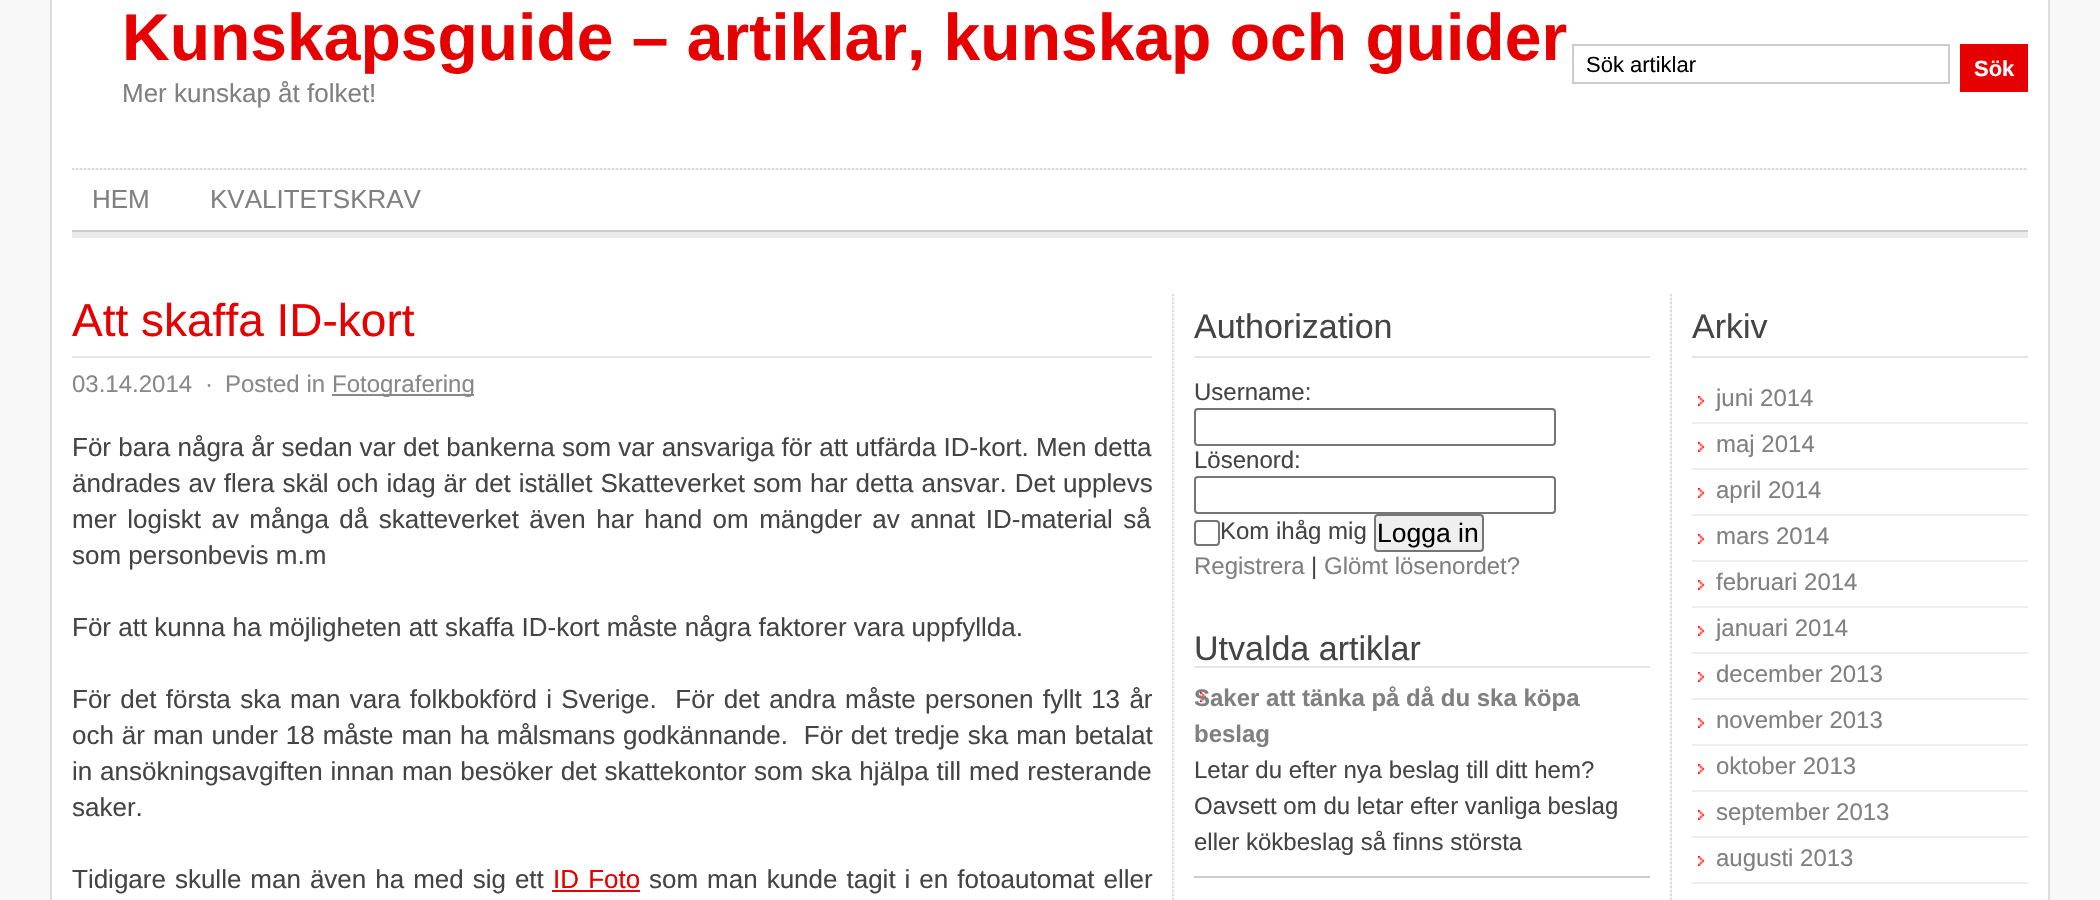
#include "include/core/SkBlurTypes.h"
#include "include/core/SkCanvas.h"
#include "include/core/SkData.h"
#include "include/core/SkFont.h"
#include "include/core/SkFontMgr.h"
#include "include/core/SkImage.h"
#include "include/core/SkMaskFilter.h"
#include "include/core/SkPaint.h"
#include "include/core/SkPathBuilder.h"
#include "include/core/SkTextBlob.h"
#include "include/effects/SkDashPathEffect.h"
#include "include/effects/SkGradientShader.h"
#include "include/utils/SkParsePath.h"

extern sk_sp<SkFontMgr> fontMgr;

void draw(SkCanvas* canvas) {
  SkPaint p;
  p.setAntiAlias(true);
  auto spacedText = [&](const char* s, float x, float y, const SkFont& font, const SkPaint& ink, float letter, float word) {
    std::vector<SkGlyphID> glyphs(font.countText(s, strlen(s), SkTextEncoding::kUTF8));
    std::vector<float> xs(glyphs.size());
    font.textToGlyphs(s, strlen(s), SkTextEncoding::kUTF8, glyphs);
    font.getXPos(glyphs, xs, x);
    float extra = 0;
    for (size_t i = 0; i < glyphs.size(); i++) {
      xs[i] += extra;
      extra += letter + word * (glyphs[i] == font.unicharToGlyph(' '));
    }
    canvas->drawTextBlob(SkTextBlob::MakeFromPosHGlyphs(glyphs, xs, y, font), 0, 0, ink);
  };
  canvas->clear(SkColorSetRGB(248, 248, 248));
  p.setColor(SK_ColorWHITE);
  canvas->drawRect(SkRect::MakeLTRB(52, 0, 2048, 900), p);
  p.setColor(SkColorSetRGB(221, 221, 221));
  canvas->drawPath(SkPathBuilder().moveTo(2050, -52).lineTo(2050, 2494).lineTo(2048, 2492).lineTo(2048, -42).close().detach(), p);
  canvas->drawPath(SkPathBuilder().moveTo(50, 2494).lineTo(50, -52).lineTo(52, -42).lineTo(52, 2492).close().detach(), p);
  p.setColor(SkColorSetRGB(234, 234, 234));
  canvas->drawRect(SkRect::MakeLTRB(72, 232, 2028, 238), p);
  p.setStyle(SkPaint::kStroke_Style);
  p.setStrokeWidth(2);
  p.setColor(SkColorSetRGB(204, 204, 204));
  canvas->drawRect(SkRect::MakeLTRB(1573, 45, 1949, 83), p);
  p.setStyle(SkPaint::kFill_Style);
  p.setColor(SkColorSetRGB(230, 0, 0));
  canvas->drawRect(SkRect::MakeLTRB(1960, 44, 2028, 92), p);
  canvas->drawImageRect(SkImages::DeferredFromEncodedData(SkData::MakeFromFileName("images/1.png")), SkRect::MakeLTRB(72, 168, 2028, 170), SkSamplingOptions());
  p.setColor(SkColorSetRGB(204, 204, 204));
  canvas->drawRect(SkRect::MakeLTRB(72, 230, 2028, 232), p);
  canvas->drawImageRect(SkImages::DeferredFromEncodedData(SkData::MakeFromFileName("images/2.png")), SkRect::MakeLTRB(1172, 294, 1672, 900), SkSamplingOptions());
  p.setColor(SkColorSetRGB(229, 229, 229));
  canvas->drawRect(SkRect::MakeLTRB(72, 356, 1152, 358), p);
  p.setColor(SkColorSetRGB(136, 136, 136));
  canvas->drawRect(SkRect::MakeLTRB(332, 394, 474, 396), p);
  p.setColor(SkColorSetRGB(230, 0, 0));
  canvas->drawRect(SkRect::MakeLTRB(552, 890, 640, 892), p);
  p.setColor(SkColorSetRGB(229, 229, 229));
  canvas->drawRect(SkRect::MakeLTRB(1194, 356, 1650, 358), p);
  p.setStyle(SkPaint::kStroke_Style);
  p.setColor(SkColorSetRGB(118, 118, 118));
  canvas->drawRoundRect(SkRect::MakeLTRB(1195, 409, 1555, 445), 3, 3, p);
  canvas->drawRoundRect(SkRect::MakeLTRB(1195, 477, 1555, 513), 3, 3, p);
  canvas->drawRoundRect(SkRect::MakeLTRB(1195, 521, 1219, 545), 3, 3, p);
  p.setStyle(SkPaint::kFill_Style);
  p.setColor(SkColorSetRGB(239, 239, 239));
  canvas->drawRoundRect(SkRect::MakeLTRB(1375, 515, 1483, 551), 3, 3, p);
  p.setStyle(SkPaint::kStroke_Style);
  p.setColor(SkColorSetRGB(118, 118, 118));
  canvas->drawRoundRect(SkRect::MakeLTRB(1375, 515, 1483, 551), 3, 3, p);
  p.setStyle(SkPaint::kFill_Style);
  p.setColor(SkColorSetRGB(229, 229, 229));
  canvas->drawRect(SkRect::MakeLTRB(1194, 666, 1650, 668), p);
  canvas->drawImageRect(SkImages::DeferredFromEncodedData(SkData::MakeFromFileName("images/3.png")), SkRect::MakeLTRB(1200, 692, 1206, 702), SkSamplingOptions());
  p.setColor(SkColorSetRGB(204, 204, 204));
  canvas->drawRect(SkRect::MakeLTRB(1194, 876, 1650, 878), p);
  p.setColor(SkColorSetRGB(229, 229, 229));
  canvas->drawRect(SkRect::MakeLTRB(1692, 356, 2028, 358), p);
  canvas->drawImageRect(SkImages::DeferredFromEncodedData(SkData::MakeFromFileName("images/3.png")), SkRect::MakeLTRB(1698, 396, 1704, 406), SkSamplingOptions());
  p.setColor(SkColorSetRGB(238, 238, 238));
  canvas->drawRect(SkRect::MakeLTRB(1692, 422, 2028, 424), p);
  canvas->drawImageRect(SkImages::DeferredFromEncodedData(SkData::MakeFromFileName("images/3.png")), SkRect::MakeLTRB(1698, 442, 1704, 452), SkSamplingOptions());
  canvas->drawRect(SkRect::MakeLTRB(1692, 468, 2028, 470), p);
  canvas->drawImageRect(SkImages::DeferredFromEncodedData(SkData::MakeFromFileName("images/3.png")), SkRect::MakeLTRB(1698, 488, 1704, 498), SkSamplingOptions());
  canvas->drawRect(SkRect::MakeLTRB(1692, 514, 2028, 516), p);
  canvas->drawImageRect(SkImages::DeferredFromEncodedData(SkData::MakeFromFileName("images/3.png")), SkRect::MakeLTRB(1698, 534, 1704, 544), SkSamplingOptions());
  canvas->drawRect(SkRect::MakeLTRB(1692, 560, 2028, 562), p);
  canvas->drawImageRect(SkImages::DeferredFromEncodedData(SkData::MakeFromFileName("images/3.png")), SkRect::MakeLTRB(1698, 580, 1704, 590), SkSamplingOptions());
  canvas->drawRect(SkRect::MakeLTRB(1692, 606, 2028, 608), p);
  canvas->drawImageRect(SkImages::DeferredFromEncodedData(SkData::MakeFromFileName("images/3.png")), SkRect::MakeLTRB(1698, 626, 1704, 636), SkSamplingOptions());
  canvas->drawRect(SkRect::MakeLTRB(1692, 652, 2028, 654), p);
  canvas->drawImageRect(SkImages::DeferredFromEncodedData(SkData::MakeFromFileName("images/3.png")), SkRect::MakeLTRB(1698, 672, 1704, 682), SkSamplingOptions());
  canvas->drawRect(SkRect::MakeLTRB(1692, 698, 2028, 700), p);
  canvas->drawImageRect(SkImages::DeferredFromEncodedData(SkData::MakeFromFileName("images/3.png")), SkRect::MakeLTRB(1698, 718, 1704, 728), SkSamplingOptions());
  canvas->drawRect(SkRect::MakeLTRB(1692, 744, 2028, 746), p);
  canvas->drawImageRect(SkImages::DeferredFromEncodedData(SkData::MakeFromFileName("images/3.png")), SkRect::MakeLTRB(1698, 764, 1704, 774), SkSamplingOptions());
  canvas->drawRect(SkRect::MakeLTRB(1692, 790, 2028, 792), p);
  canvas->drawImageRect(SkImages::DeferredFromEncodedData(SkData::MakeFromFileName("images/3.png")), SkRect::MakeLTRB(1698, 810, 1704, 820), SkSamplingOptions());
  canvas->drawRect(SkRect::MakeLTRB(1692, 836, 2028, 838), p);
  canvas->drawImageRect(SkImages::DeferredFromEncodedData(SkData::MakeFromFileName("images/3.png")), SkRect::MakeLTRB(1698, 856, 1704, 866), SkSamplingOptions());
  canvas->drawRect(SkRect::MakeLTRB(1692, 882, 2028, 884), p);
  SkFont font1(fontMgr->matchFamilyStyle("Liberation Sans", SkFontStyle::Bold()), 66);
  font1.setSubpixel(true);
  p.setColor(SkColorSetRGB(230, 0, 0));
  canvas->drawString("Kunskapsguide – artiklar, kunskap och guider", 122, 60, font1, p);
  SkFont font2(fontMgr->matchFamilyStyle("Liberation Sans", SkFontStyle::Normal()), 26);
  font2.setSubpixel(true);
  p.setColor(SkColorSetRGB(128, 128, 128));
  canvas->drawString("Mer kunskap åt folket!", 122, 102, font2, p);
  SkFont font3(fontMgr->matchFamilyStyle("Liberation Sans", SkFontStyle::Normal()), 22);
  font3.setSubpixel(true);
  p.setColor(SK_ColorBLACK);
  canvas->drawString("Sök artiklar", 1586, 72, font3, p);
  SkFont font4(fontMgr->matchFamilyStyle("Liberation Sans", SkFontStyle::Bold()), 22);
  font4.setSubpixel(true);
  p.setColor(SK_ColorWHITE);
  canvas->drawString("Sök", 1974, 76, font4, p);
  p.setColor(SkColorSetRGB(128, 128, 128));
  canvas->drawString("HEM", 92, 208, font2, p);
  canvas->drawString("KVALITETSKRAV", 210, 208, font2, p);
  SkFont font5(fontMgr->matchFamilyStyle("Liberation Sans", SkFontStyle::Normal()), 46);
  font5.setSubpixel(true);
  p.setColor(SkColorSetRGB(230, 0, 0));
  canvas->drawString("Att skaffa ID-kort", 72, 336, font5, p);
  SkFont font6(fontMgr->matchFamilyStyle("Liberation Sans", SkFontStyle::Normal()), 24);
  font6.setSubpixel(true);
  p.setColor(SkColorSetRGB(136, 136, 136));
  canvas->drawString("03.14.2014", 72, 392, font6, p);
  canvas->drawString("·", 205, 392, font6, p);
  canvas->drawString("Posted in", 225, 392, font6, p);
  canvas->drawString("Fotografering", 332, 392, font6, p);
  p.setColor(SkColorSetRGB(68, 68, 68));
  canvas->drawString("För bara några år sedan var det bankerna som var ansvariga för att utfärda ID-kort. Men detta", 72, 456, font2, p);
  spacedText("ändrades av flera skäl och idag är det istället Skatteverket som har detta ansvar. Det upplevs", 72, 492, font2, p, 0, 0.75f);
  spacedText("mer logiskt av många då skatteverket även har hand om mängder av annat ID-material så", 72, 528, font2, p, 0, 3.25f);
  canvas->drawString("som personbevis m.m", 72, 564, font2, p);
  canvas->drawString("För att kunna ha möjligheten att skaffa ID-kort måste några faktorer vara uppfyllda.", 72, 636, font2, p);
  spacedText("För det första ska man vara folkbokförd i Sverige.  För det andra måste personen fyllt 13 år", 72, 708, font2, p, 0, 2.1f);
  spacedText("och är man under 18 måste man ha målsmans godkännande.  För det tredje ska man betalat", 72, 744, font2, p, 0, 0.7f);
  spacedText("in ansökningsavgiften innan man besöker det skattekontor som ska hjälpa till med resterande", 72, 780, font2, p, 0, 0.6f);
  canvas->drawString("saker.", 72, 816, font2, p);
  spacedText("Tidigare skulle man även ha med sig ett", 72, 888, font2, p, 0, 1.75f);
  p.setColor(SkColorSetRGB(230, 0, 0));
  spacedText("ID Foto", 553, 888, font2, p, 0, 2);
  p.setColor(SkColorSetRGB(68, 68, 68));
  spacedText("som man kunde tagit i en fotoautomat eller", 649, 888, font2, p, 0, 1.75f);
  SkFont font7(fontMgr->matchFamilyStyle("Liberation Sans", SkFontStyle::Normal()), 34);
  font7.setSubpixel(true);
  canvas->drawString("Authorization", 1194, 338, font7, p);
  canvas->drawString("Username:", 1194, 400, font6, p);
  canvas->drawString("Lösenord:", 1194, 468, font6, p);
  canvas->drawString("Kom ihåg mig", 1220, 539, font6, p);
  SkFont font8(fontMgr->matchFamilyStyle("Liberation Sans", SkFontStyle::Normal()), 26.5f);
  font8.setSubpixel(true);
  p.setColor(SK_ColorBLACK);
  canvas->drawString("Logga in", 1377, 542, font8, p);
  p.setColor(SkColorSetRGB(128, 128, 128));
  canvas->drawString("Registrera", 1194, 574, font6, p);
  p.setColor(SkColorSetRGB(68, 68, 68));
  canvas->drawString("|", 1311, 574, font6, p);
  p.setColor(SkColorSetRGB(128, 128, 128));
  canvas->drawString("Glömt lösenordet?", 1324, 574, font6, p);
  p.setColor(SkColorSetRGB(68, 68, 68));
  canvas->drawString("Utvalda artiklar", 1194, 660, font7, p);
  SkFont font9(fontMgr->matchFamilyStyle("Liberation Sans", SkFontStyle::Bold()), 24);
  font9.setSubpixel(true);
  p.setColor(SkColorSetRGB(128, 128, 128));
  canvas->drawString("Saker att tänka på då du ska köpa", 1194, 706, font9, p);
  canvas->drawString("beslag", 1194, 742, font9, p);
  p.setColor(SkColorSetRGB(68, 68, 68));
  canvas->drawString("Letar du efter nya beslag till ditt hem?", 1194, 778, font6, p);
  canvas->drawString("Oavsett om du letar efter vanliga beslag", 1194, 814, font6, p);
  canvas->drawString("eller kökbeslag så finns största", 1194, 850, font6, p);
  canvas->drawString("Arkiv", 1692, 338, font7, p);
  p.setColor(SkColorSetRGB(128, 128, 128));
  canvas->drawString("juni 2014", 1716, 406, font6, p);
  canvas->drawString("maj 2014", 1716, 452, font6, p);
  canvas->drawString("april 2014", 1716, 498, font6, p);
  canvas->drawString("mars 2014", 1716, 544, font6, p);
  canvas->drawString("februari 2014", 1716, 590, font6, p);
  canvas->drawString("januari 2014", 1716, 636, font6, p);
  canvas->drawString("december 2013", 1716, 682, font6, p);
  canvas->drawString("november 2013", 1716, 728, font6, p);
  canvas->drawString("oktober 2013", 1716, 774, font6, p);
  canvas->drawString("september 2013", 1716, 820, font6, p);
  canvas->drawString("augusti 2013", 1716, 866, font6, p);
}
